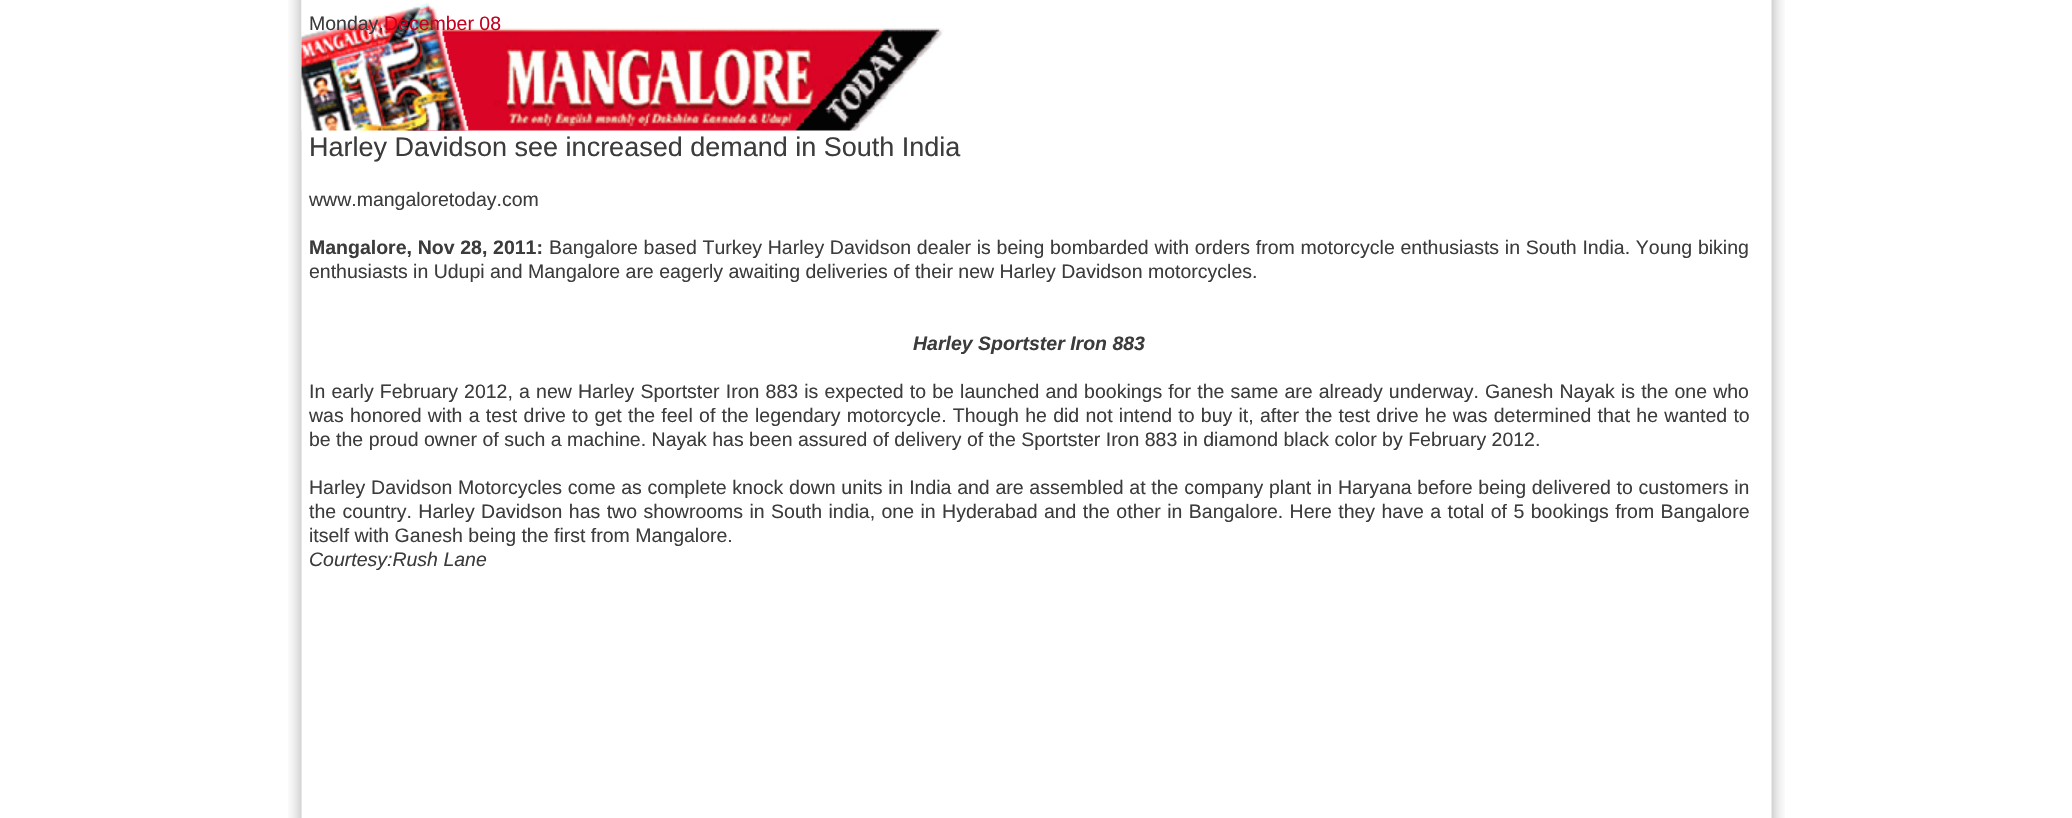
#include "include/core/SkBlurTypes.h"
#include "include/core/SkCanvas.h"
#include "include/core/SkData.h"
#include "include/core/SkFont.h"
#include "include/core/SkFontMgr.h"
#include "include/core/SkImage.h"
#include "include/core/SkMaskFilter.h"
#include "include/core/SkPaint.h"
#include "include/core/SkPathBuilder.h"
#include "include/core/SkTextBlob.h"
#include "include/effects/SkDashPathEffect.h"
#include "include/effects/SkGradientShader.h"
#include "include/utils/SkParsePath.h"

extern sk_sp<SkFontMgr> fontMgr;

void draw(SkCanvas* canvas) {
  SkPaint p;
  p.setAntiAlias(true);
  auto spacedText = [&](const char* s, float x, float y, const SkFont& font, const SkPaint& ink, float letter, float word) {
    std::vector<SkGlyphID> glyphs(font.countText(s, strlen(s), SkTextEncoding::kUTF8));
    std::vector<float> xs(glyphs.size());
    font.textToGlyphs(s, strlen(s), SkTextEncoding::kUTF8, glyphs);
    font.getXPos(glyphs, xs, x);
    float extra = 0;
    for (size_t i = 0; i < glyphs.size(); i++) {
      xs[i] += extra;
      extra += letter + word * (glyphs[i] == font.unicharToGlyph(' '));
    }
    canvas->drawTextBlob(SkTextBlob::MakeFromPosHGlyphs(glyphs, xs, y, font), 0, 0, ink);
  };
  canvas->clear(SK_ColorWHITE);
  canvas->drawImageRect(SkImages::DeferredFromEncodedData(SkData::MakeFromFileName("images/1.png")), SkRect::MakeLTRB(288, 0, 1785, 818), SkSamplingOptions());
  canvas->drawImageRect(SkImages::DeferredFromEncodedData(SkData::MakeFromFileName("images/3.png")), SkRect::MakeLTRB(301, 0, 944, 131), SkSamplingOptions());
  canvas->drawImageRect(SkImages::DeferredFromEncodedData(SkData::MakeFromFileName("images/2.png")), SkRect::MakeLTRB(301, 2, 469, 131), SkSamplingOptions());
  SkFont font1(fontMgr->matchFamilyStyle("Liberation Sans", SkFontStyle::Normal()), 19.5f);
  font1.setSubpixel(true);
  p.setColor(SkColorSetRGB(60, 60, 60));
  canvas->drawString("Monday,", 309, 30, font1, p);
  p.setColor(SkColorSetRGB(198, 0, 31));
  canvas->drawString("December 08", 384, 30, font1, p);
  SkFont font2(fontMgr->matchFamilyStyle("Liberation Sans", SkFontStyle::Normal()), 27);
  font2.setSubpixel(true);
  p.setColor(SkColorSetRGB(60, 60, 60));
  canvas->drawString("Harley Davidson see increased demand in South India", 309, 156, font2, p);
  canvas->drawString("www.mangaloretoday.com", 309, 206, font1, p);
  SkFont font3(fontMgr->matchFamilyStyle("Liberation Sans", SkFontStyle::Bold()), 19.5f);
  font3.setSubpixel(true);
  spacedText("Mangalore, Nov 28, 2011:", 309, 254, font3, p, 0, 0.3f);
  spacedText("Bangalore based Turkey Harley Davidson dealer is being bombarded with orders from motorcycle enthusiasts in South India. Young biking", 549, 254, font1, p, 0, 0.3f);
  canvas->drawString("enthusiasts in Udupi and Mangalore are eagerly awaiting deliveries of their new Harley Davidson motorcycles.", 309, 278, font1, p);
  SkFont font4(fontMgr->matchFamilyStyle("Liberation Sans", SkFontStyle::BoldItalic()), 19.5f);
  font4.setSubpixel(true);
  canvas->drawString("Harley Sportster Iron 883", 913, 350, font4, p);
  spacedText("In early February 2012, a new Harley Sportster Iron 883 is expected to be launched and bookings for the same are already underway. Ganesh Nayak is the one who", 309, 398, font1, p, 0, 0.75f);
  spacedText("was honored with a test drive to get the feel of the legendary motorcycle. Though he did not intend to buy it, after the test drive he was determined that he wanted to", 309, 422, font1, p, 0, 0.85f);
  canvas->drawString("be the proud owner of such a machine. Nayak has been assured of delivery of the Sportster Iron 883 in diamond black color by February 2012.", 309, 446, font1, p);
  spacedText("Harley Davidson Motorcycles come as complete knock down units in India and are assembled at the company plant in Haryana before being delivered to customers in", 309, 494, font1, p, 0, 0.3f);
  spacedText("the country. Harley Davidson has two showrooms in South india, one in Hyderabad and the other in Bangalore. Here they have a total of 5 bookings from Bangalore", 309, 518, font1, p, 0, 1);
  canvas->drawString("itself with Ganesh being the first from Mangalore.", 309, 542, font1, p);
  SkFont font5(fontMgr->matchFamilyStyle("Liberation Sans", SkFontStyle::Italic()), 19.5f);
  font5.setSubpixel(true);
  canvas->drawString("Courtesy:Rush Lane", 309, 566, font5, p);
}
